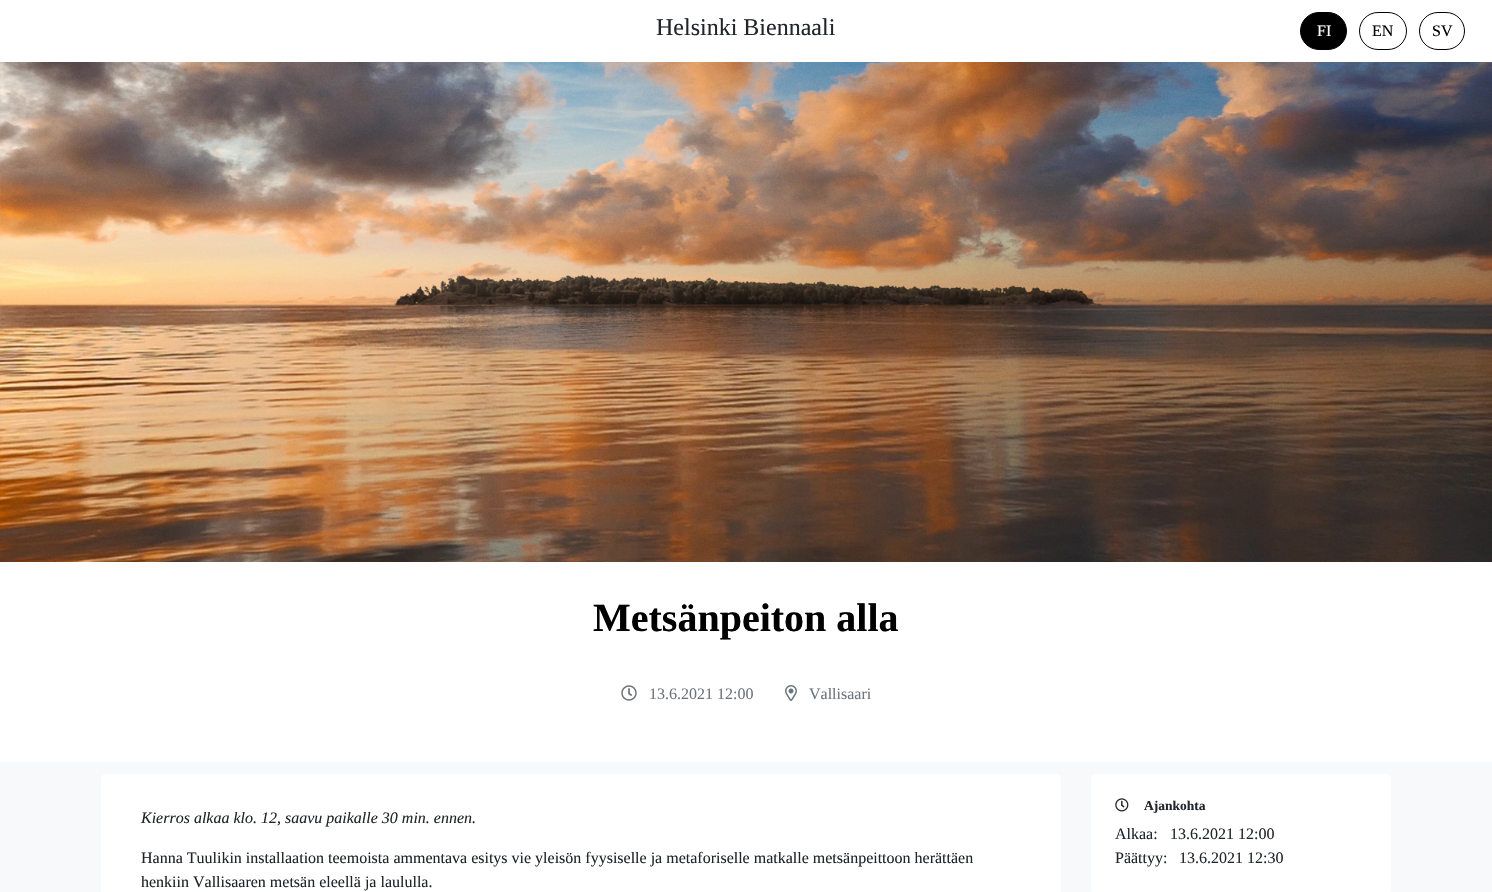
#include "include/core/SkBlurTypes.h"
#include "include/core/SkCanvas.h"
#include "include/core/SkData.h"
#include "include/core/SkFont.h"
#include "include/core/SkFontMgr.h"
#include "include/core/SkImage.h"
#include "include/core/SkMaskFilter.h"
#include "include/core/SkPaint.h"
#include "include/core/SkPathBuilder.h"
#include "include/core/SkTextBlob.h"
#include "include/effects/SkDashPathEffect.h"
#include "include/effects/SkGradientShader.h"
#include "include/utils/SkParsePath.h"

extern sk_sp<SkFontMgr> fontMgr;

void draw(SkCanvas* canvas) {
  SkPaint p;
  p.setAntiAlias(true);
  canvas->clear(SK_ColorWHITE);
  p.setColor(SK_ColorBLACK);
  canvas->drawRoundRect(SkRect::MakeLTRB(1300.5f, 12.5f, 1346.5f, 49.5f), 18.5f, 18.5f, p);
  p.setStyle(SkPaint::kStroke_Style);
  p.setStrokeWidth(1);
  canvas->drawRoundRect(SkRect::MakeLTRB(1300.5f, 12.5f, 1346.5f, 49.5f), 18.5f, 18.5f, p);
  canvas->drawRoundRect(SkRect::MakeLTRB(1359.5f, 12.5f, 1406.5f, 49.5f), 18.5f, 18.5f, p);
  canvas->drawRoundRect(SkRect::MakeLTRB(1419.5f, 12.5f, 1464.5f, 49.5f), 18.5f, 18.5f, p);
  canvas->drawImageRect(SkImages::DeferredFromEncodedData(SkData::MakeFromFileName("images/1.png")), SkRect::MakeLTRB(0, 62, 1492, 562), SkSamplingOptions());
  canvas->drawImageRect(SkImages::DeferredFromEncodedData(SkData::MakeFromFileName("images/2.png")), SkRect::MakeLTRB(621, 685, 637, 701), SkSamplingOptions());
  canvas->drawImageRect(SkImages::DeferredFromEncodedData(SkData::MakeFromFileName("images/3.png")), SkRect::MakeLTRB(785, 685, 797, 701), SkSamplingOptions());
  p.setStyle(SkPaint::kFill_Style);
  p.setColor(SkColorSetRGB(248, 249, 250));
  canvas->drawRect(SkRect::MakeLTRB(0, 762, 1492, 892), p);
  p.setColor(SK_ColorWHITE);
  canvas->drawPath(SkPathBuilder().moveTo(106, 774).lineTo(1056, 774).cubicTo(1059, 774, 1061, 776, 1061, 779).lineTo(1061, 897).lineTo(101, 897).lineTo(101, 779).cubicTo(101, 776, 103, 774, 106, 774).close().detach(), p);
  canvas->drawRoundRect(SkRect::MakeLTRB(1091, 774, 1391, 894), 5, 5, p);
  canvas->drawImageRect(SkImages::DeferredFromEncodedData(SkData::MakeFromFileName("images/4.png")), SkRect::MakeLTRB(1115, 798, 1129, 812), SkSamplingOptions());
  SkFont font1(fontMgr->matchFamilyStyle("Liberation Serif", SkFontStyle::Normal()), 24);
  font1.setSubpixel(true);
  p.setColor(SkColorSetRGB(33, 37, 41));
  canvas->drawString("Helsinki Biennaali", 656, 35, font1, p);
  SkFont font2(fontMgr->matchFamilyStyle("Liberation Serif", SkFontStyle::Normal()), 16);
  font2.setSubpixel(true);
  p.setColor(SK_ColorWHITE);
  canvas->drawString("FI", 1317, 36, font2, p);
  p.setColor(SK_ColorBLACK);
  canvas->drawString("EN", 1372, 36, font2, p);
  canvas->drawString("SV", 1432, 36, font2, p);
  SkFont font3(fontMgr->matchFamilyStyle("Liberation Serif", SkFontStyle::Bold()), 40);
  font3.setSubpixel(true);
  canvas->drawString("Metsänpeiton alla", 593, 631, font3, p);
  p.setColor(SkColorSetRGB(108, 117, 125));
  canvas->drawString("13.6.2021 12:00", 649, 699, font2, p);
  canvas->drawString("Vallisaari", 809, 699, font2, p);
  SkFont font4(fontMgr->matchFamilyStyle("Liberation Serif", SkFontStyle::Italic()), 16);
  font4.setSubpixel(true);
  p.setColor(SkColorSetRGB(33, 37, 41));
  canvas->drawString("Kierros alkaa klo. 12, saavu paikalle 30 min. ennen.", 141, 823, font4, p);
  canvas->drawString("Hanna Tuulikin installaation teemoista ammentava esitys vie yleisön fyysiselle ja metaforiselle matkalle metsänpeittoon herättäen", 141, 863, font2, p);
  canvas->drawString("henkiin Vallisaaren metsän eleellä ja laululla.", 141, 887, font2, p);
  SkFont font5(fontMgr->matchFamilyStyle("Liberation Serif", SkFontStyle::Bold()), 13.5f);
  font5.setSubpixel(true);
  canvas->drawString("Ajankohta", 1144, 810, font5, p);
  canvas->drawString("Alkaa:", 1115, 839, font2, p);
  canvas->drawString("13.6.2021 12:00", 1170, 839, font2, p);
  canvas->drawString("Päättyy:", 1115, 863, font2, p);
  canvas->drawString("13.6.2021 12:30", 1179, 863, font2, p);
}
